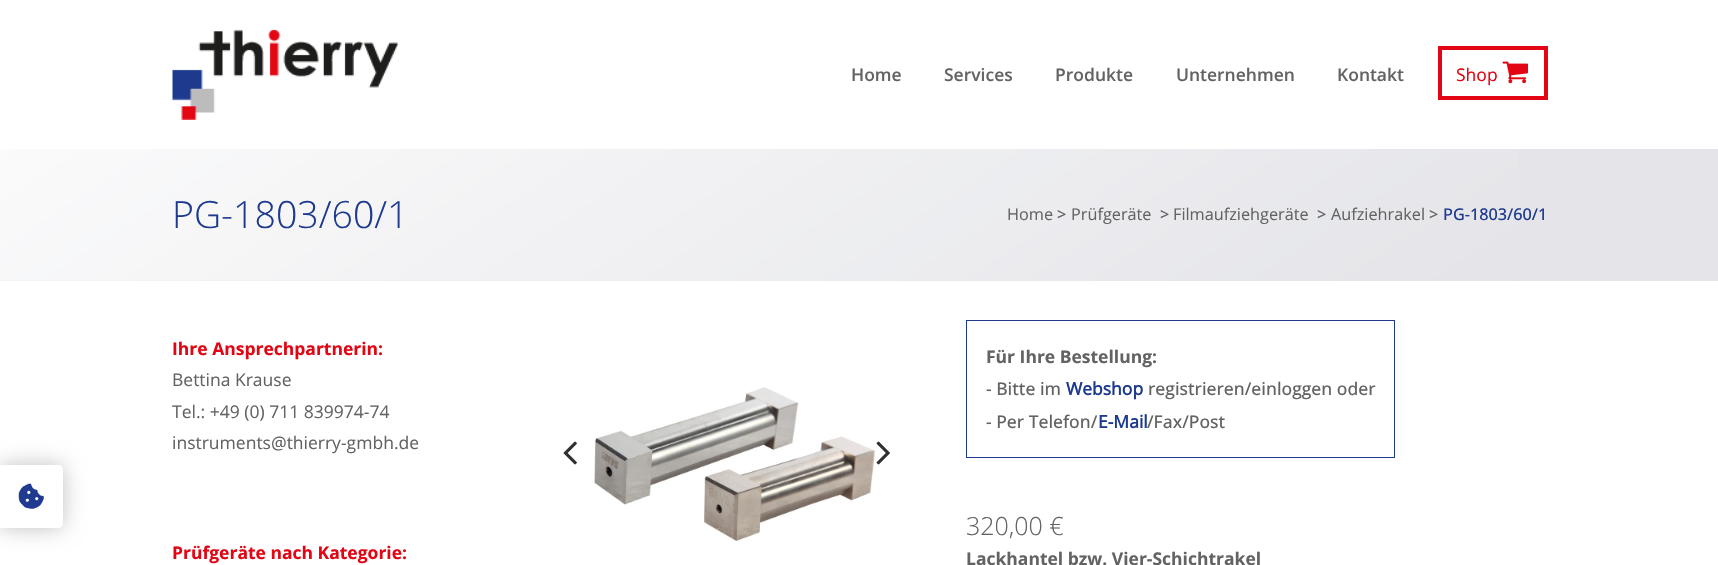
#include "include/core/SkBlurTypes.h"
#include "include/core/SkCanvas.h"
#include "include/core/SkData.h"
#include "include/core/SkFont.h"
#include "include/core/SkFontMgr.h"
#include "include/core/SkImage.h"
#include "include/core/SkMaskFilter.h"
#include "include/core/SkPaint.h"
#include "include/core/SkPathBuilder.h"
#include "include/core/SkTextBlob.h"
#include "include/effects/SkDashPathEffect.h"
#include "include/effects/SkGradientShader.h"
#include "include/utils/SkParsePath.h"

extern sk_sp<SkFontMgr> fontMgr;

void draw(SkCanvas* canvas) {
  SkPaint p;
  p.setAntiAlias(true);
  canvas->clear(SK_ColorWHITE);
  p.setColor(SkColorSetARGB(64, 0, 0, 0));
  p.setMaskFilter(SkMaskFilter::MakeBlur(kNormal_SkBlurStyle, 10.5f));
  canvas->drawRoundRect(SkRect::MakeLTRB(0, 465, 63, 528), 5, 5, p);
  p.setMaskFilter(nullptr);
  p.setColor(SK_ColorWHITE);
  canvas->drawPath(SkPathBuilder().moveTo(0, 465).lineTo(58, 465).cubicTo(61, 465, 63, 467, 63, 470).lineTo(63, 523).cubicTo(63, 526, 61, 528, 58, 528).lineTo(0, 528).close().detach(), p);
  canvas->drawImageRect(SkImages::DeferredFromEncodedData(SkData::MakeFromFileName("images/1.png")), SkRect::MakeLTRB(18, 483, 44, 509), SkSamplingOptions());
  canvas->drawImageRect(SkImages::DeferredFromEncodedData(SkData::MakeFromFileName("images/2.png")), SkRect::MakeLTRB(172, 29, 398, 120), SkSamplingOptions());
  p.setStyle(SkPaint::kStroke_Style);
  p.setStrokeWidth(4);
  p.setColor(SkColorSetRGB(227, 5, 19));
  canvas->drawRect(SkRect::MakeLTRB(1440, 48, 1546, 98), p);
  canvas->drawImageRect(SkImages::DeferredFromEncodedData(SkData::MakeFromFileName("images/3.png")), SkRect::MakeLTRB(1502, 61, 1529, 84), SkSamplingOptions());
  p.setStyle(SkPaint::kFill_Style);
  p.setColor(SkColorSetRGB(229, 229, 233));
  canvas->drawRect(SkRect::MakeLTRB(0, 149, 1718, 281), p);
  canvas->drawImageRect(SkImages::DeferredFromEncodedData(SkData::MakeFromFileName("images/4.png")), SkRect::MakeLTRB(0, 149, 1518, 281), SkSamplingOptions());
  canvas->drawImageRect(SkImages::DeferredFromEncodedData(SkData::MakeFromFileName("images/5.png")), SkRect::MakeLTRB(594, 387, 876, 541), SkSamplingOptions());
  canvas->drawImageRect(SkImages::DeferredFromEncodedData(SkData::MakeFromFileName("images/6.png")), SkRect::MakeLTRB(563, 441, 577, 465), SkSamplingOptions());
  canvas->drawImageRect(SkImages::DeferredFromEncodedData(SkData::MakeFromFileName("images/7.png")), SkRect::MakeLTRB(876, 441, 890, 465), SkSamplingOptions());
  p.setStyle(SkPaint::kStroke_Style);
  p.setStrokeWidth(1);
  p.setColor(SkColorSetRGB(29, 58, 143));
  canvas->drawRect(SkRect::MakeLTRB(966.5f, 320.5f, 1394.5f, 457.5f), p);
  SkFont font1(fontMgr->matchFamilyStyle("Open Sans", SkFontStyle(600, SkFontStyle::kNormal_Width, SkFontStyle::kUpright_Slant)), 17.5f);
  font1.setSubpixel(true);
  p.setStyle(SkPaint::kFill_Style);
  p.setColor(SkColorSetRGB(99, 99, 99));
  canvas->drawString("Home", 851, 81, font1, p);
  canvas->drawString("Services", 944, 81, font1, p);
  canvas->drawString("Produkte", 1055, 81, font1, p);
  canvas->drawString("Unternehmen", 1176, 81, font1, p);
  canvas->drawString("Kontakt", 1337, 81, font1, p);
  SkFont font2(fontMgr->matchFamilyStyle("Open Sans", SkFontStyle::Normal()), 17.5f);
  font2.setSubpixel(true);
  p.setColor(SkColorSetRGB(227, 5, 19));
  canvas->drawString("Shop", 1456, 81, font2, p);
  SkFont font3(fontMgr->matchFamilyStyle("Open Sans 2", SkFontStyle(300, SkFontStyle::kNormal_Width, SkFontStyle::kUpright_Slant)), 37.5f);
  font3.setSubpixel(true);
  p.setColor(SkColorSetRGB(29, 58, 143));
  canvas->drawString("PG-1803/60/1", 172, 228, font3, p);
  SkFont font4(fontMgr->matchFamilyStyle("Open Sans", SkFontStyle::Normal()), 16.25f);
  font4.setSubpixel(true);
  p.setColor(SkColorSetRGB(99, 99, 99));
  canvas->drawString("Home", 1007, 220, font4, p);
  SkFont font5(fontMgr->matchFamilyStyle("Open Sans", SkFontStyle(500, SkFontStyle::kNormal_Width, SkFontStyle::kUpright_Slant)), 16.25f);
  font5.setSubpixel(true);
  canvas->drawString(">", 1057, 220, font5, p);
  canvas->drawString("Prüfgeräte", 1071, 220, font4, p);
  canvas->drawString(">", 1160, 220, font5, p);
  canvas->drawString("Filmaufziehgeräte", 1173, 220, font4, p);
  canvas->drawString(">", 1317, 220, font5, p);
  canvas->drawString("Aufziehrakel", 1331, 220, font4, p);
  canvas->drawString(">", 1429, 220, font5, p);
  p.setColor(SkColorSetRGB(29, 58, 143));
  canvas->drawString("PG-1803/60/1", 1443, 220, font5, p);
  SkFont font6(fontMgr->matchFamilyStyle("Open Sans", SkFontStyle::Bold()), 17.5f);
  font6.setSubpixel(true);
  p.setColor(SkColorSetRGB(227, 5, 19));
  canvas->drawString("Ihre Ansprechpartnerin:", 172, 355, font6, p);
  p.setColor(SkColorSetRGB(99, 99, 99));
  canvas->drawString("Bettina Krause", 172, 386, font2, p);
  canvas->drawString("Tel.: +49 (0) 711 839974-74", 172, 418, font2, p);
  canvas->drawString("instruments@thierry-gmbh.de", 172, 449, font2, p);
  p.setColor(SkColorSetRGB(227, 5, 19));
  canvas->drawString("Prüfgeräte nach Kategorie:", 172, 559, font6, p);
  p.setColor(SkColorSetRGB(99, 99, 99));
  canvas->drawString("Für Ihre Bestellung:", 986, 363, font6, p);
  SkFont font7(fontMgr->matchFamilyStyle("Open Sans", SkFontStyle(500, SkFontStyle::kNormal_Width, SkFontStyle::kUpright_Slant)), 17.5f);
  font7.setSubpixel(true);
  canvas->drawString("- Bitte im", 986, 395, font7, p);
  SkFont font8(fontMgr->matchFamilyStyle("Open Sans 2", SkFontStyle::Bold()), 17.5f);
  font8.setSubpixel(true);
  p.setColor(SkColorSetRGB(29, 58, 143));
  canvas->drawString("Webshop", 1066, 395, font8, p);
  p.setColor(SkColorSetRGB(99, 99, 99));
  canvas->drawString("registrieren/einloggen oder", 1148, 395, font7, p);
  canvas->drawString("- Per Telefon/", 986, 428, font7, p);
  p.setColor(SkColorSetRGB(29, 58, 143));
  canvas->drawString("E-Mail", 1098, 428, font8, p);
  p.setColor(SkColorSetRGB(99, 99, 99));
  canvas->drawString("/Fax/Post", 1147, 428, font7, p);
  SkFont font9(fontMgr->matchFamilyStyle("Open Sans", SkFontStyle(300, SkFontStyle::kNormal_Width, SkFontStyle::kUpright_Slant)), 25);
  font9.setSubpixel(true);
  canvas->drawString("320,00 €", 966, 535, font9, p);
  canvas->drawString("Lackhantel bzw. Vier-Schichtrakel", 966, 565, font6, p);
}
